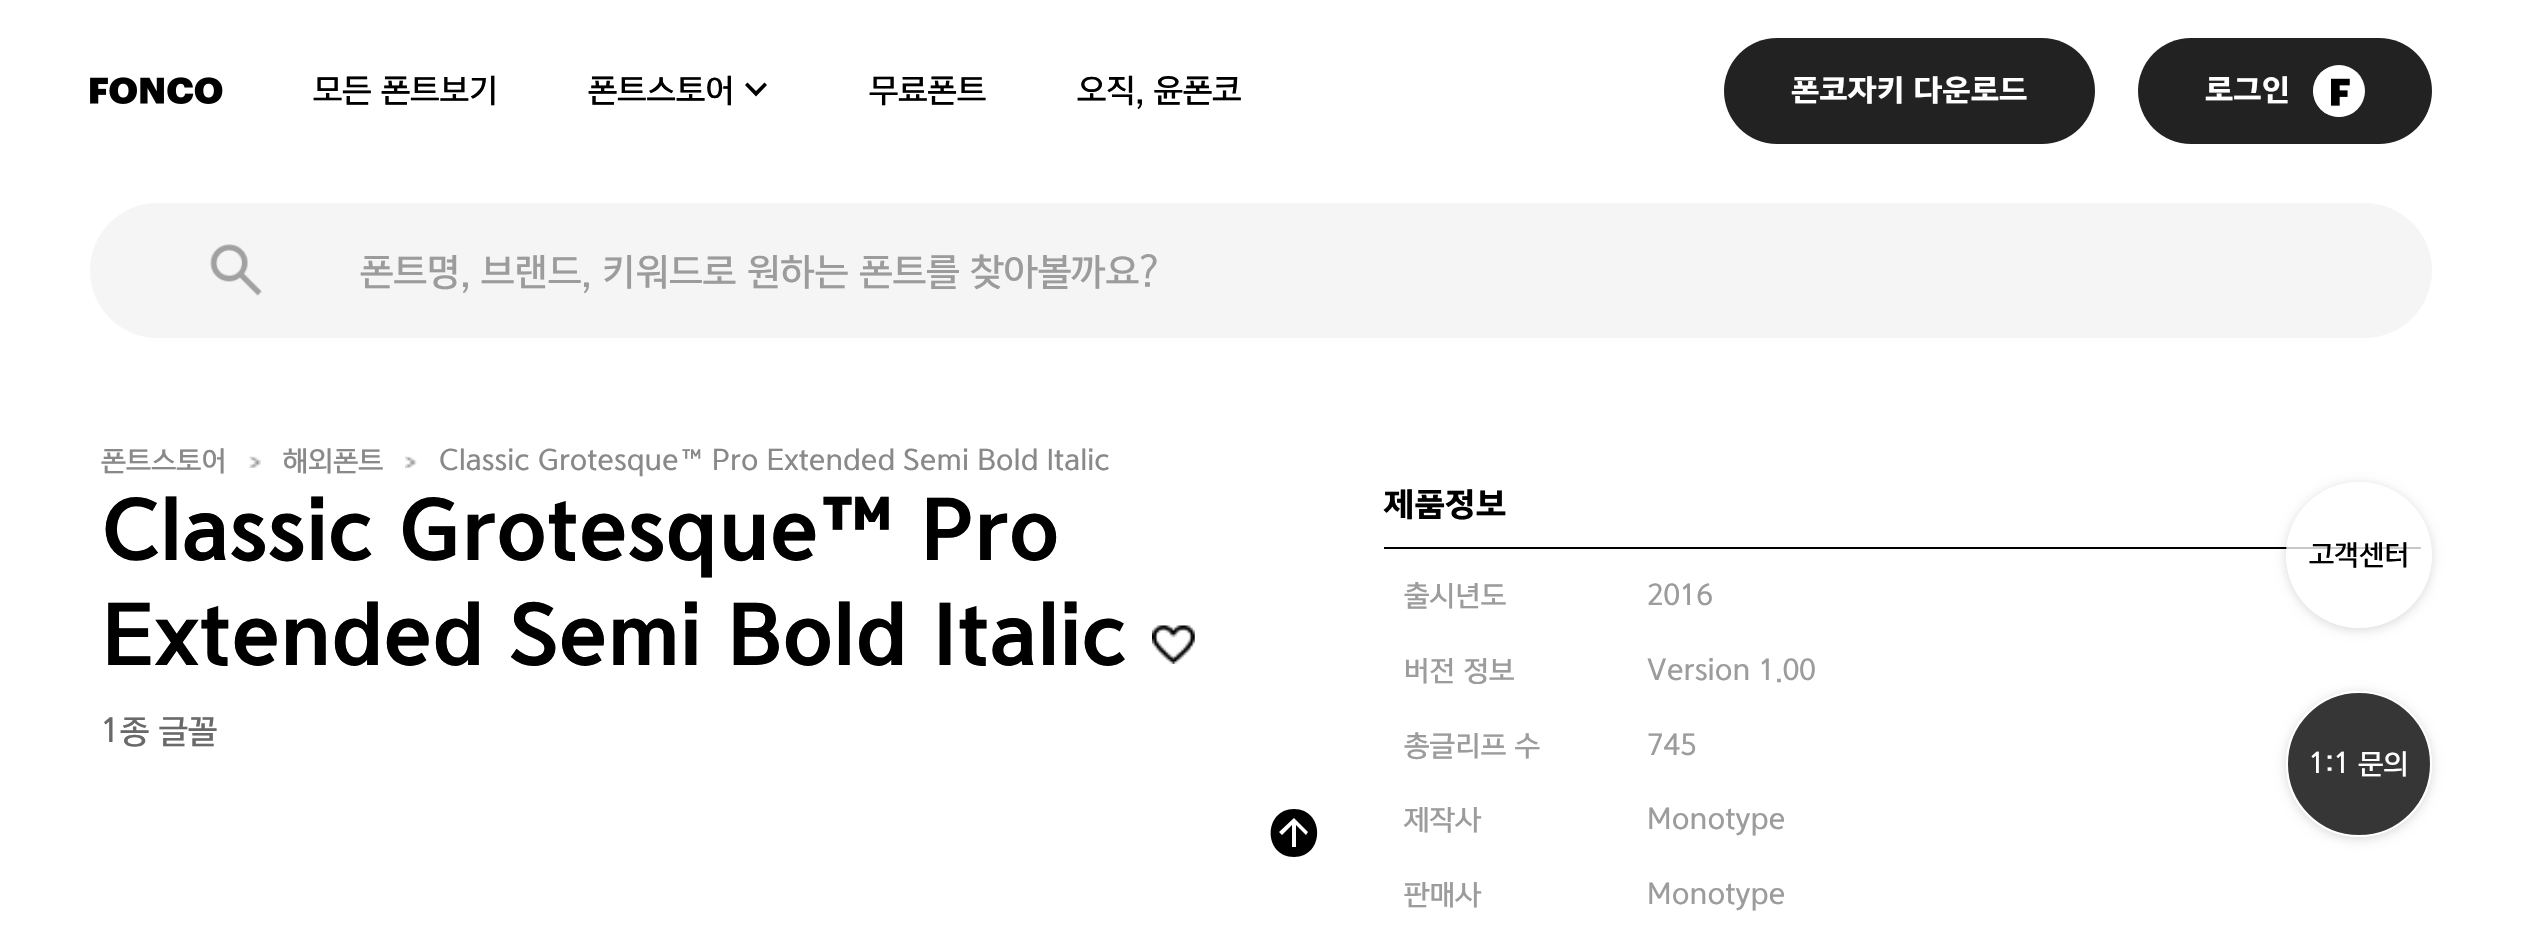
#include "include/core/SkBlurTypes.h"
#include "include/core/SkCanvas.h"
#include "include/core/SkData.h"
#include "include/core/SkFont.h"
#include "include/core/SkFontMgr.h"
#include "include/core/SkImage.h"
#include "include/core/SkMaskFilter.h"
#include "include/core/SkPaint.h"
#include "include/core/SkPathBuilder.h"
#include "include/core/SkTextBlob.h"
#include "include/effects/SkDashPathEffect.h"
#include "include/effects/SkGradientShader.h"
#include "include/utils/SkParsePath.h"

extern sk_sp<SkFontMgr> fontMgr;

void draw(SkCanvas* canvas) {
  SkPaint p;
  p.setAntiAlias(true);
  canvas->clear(SK_ColorWHITE);
  canvas->drawImageRect(SkImages::DeferredFromEncodedData(SkData::MakeFromFileName("images/1.png")), SkRect::MakeLTRB(90, 77, 223, 104), SkSamplingOptions());
  p.setColor(SK_ColorBLACK);
  canvas->drawPath(SkPathBuilder().moveTo(756, 96.5f).lineTo(745, 85).lineTo(747.5f, 82.5f).lineTo(756, 91).lineTo(764.5f, 82.5f).lineTo(767, 85).close().detach(), p);
  p.setColor(SkColorSetRGB(34, 34, 34));
  canvas->drawRoundRect(SkRect::MakeLTRB(1724, 38, 2095, 144), 53, 53, p);
  canvas->drawRoundRect(SkRect::MakeLTRB(2138, 38, 2432, 144), 53, 53, p);
  p.setColor(SkColorSetRGB(217, 217, 217));
  canvas->drawCircle(2339, 91, 26, p);
  canvas->drawImageRect(SkImages::DeferredFromEncodedData(SkData::MakeFromFileName("images/2.png")), SkRect::MakeLTRB(2313, 65, 2365, 117), SkSamplingOptions());
  p.setColor(SkColorSetRGB(245, 245, 245));
  canvas->drawRoundRect(SkRect::MakeLTRB(90, 203, 2432, 338), 67.5f, 67.5f, p);
  canvas->drawImageRect(SkImages::DeferredFromEncodedData(SkData::MakeFromFileName("images/3.png")), SkRect::MakeLTRB(210, 244, 262, 296), SkSamplingOptions());
  canvas->drawImageRect(SkImages::DeferredFromEncodedData(SkData::MakeFromFileName("images/4.png")), SkRect::MakeLTRB(249, 456, 261, 468), SkSamplingOptions());
  canvas->drawImageRect(SkImages::DeferredFromEncodedData(SkData::MakeFromFileName("images/5.png")), SkRect::MakeLTRB(405, 456, 417, 468), SkSamplingOptions());
  canvas->drawImageRect(SkImages::DeferredFromEncodedData(SkData::MakeFromFileName("images/6.png")), SkRect::MakeLTRB(1152, 625, 1195, 664), SkSamplingOptions());
  p.setColor(SK_ColorBLACK);
  canvas->drawRect(SkRect::MakeLTRB(1384, 547, 2421, 549), p);
  canvas->save();
  canvas->clipPath(SkPathBuilder(SkPathFillType::kEvenOdd).moveTo(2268, 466).lineTo(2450, 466).lineTo(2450, 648).lineTo(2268, 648).close().moveTo(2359, 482).cubicTo(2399.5f, 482, 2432, 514.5f, 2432, 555).cubicTo(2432, 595.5f, 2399.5f, 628, 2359, 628).cubicTo(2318.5f, 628, 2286, 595.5f, 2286, 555).cubicTo(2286, 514.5f, 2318.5f, 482, 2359, 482).close().detach(), true);
  p.setColor(SkColorSetARGB(38, 0, 0, 0));
  p.setMaskFilter(SkMaskFilter::MakeBlur(kNormal_SkBlurStyle, 5.5f));
  canvas->drawRoundRect(SkRect::MakeLTRB(2286, 484, 2432, 630), 73, 73, p);
  p.setMaskFilter(nullptr);
  canvas->restore();
  p.setColor(SkColorSetARGB(201, 255, 255, 255));
  canvas->drawCircle(2359, 555, 73, p);
  canvas->save();
  canvas->clipPath(SkPathBuilder(SkPathFillType::kEvenOdd).moveTo(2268, 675).lineTo(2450, 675).lineTo(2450, 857).lineTo(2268, 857).close().moveTo(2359, 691).cubicTo(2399.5f, 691, 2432, 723.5f, 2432, 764).cubicTo(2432, 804.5f, 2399.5f, 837, 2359, 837).cubicTo(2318.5f, 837, 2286, 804.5f, 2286, 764).cubicTo(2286, 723.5f, 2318.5f, 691, 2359, 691).close().detach(), true);
  p.setColor(SkColorSetARGB(38, 0, 0, 0));
  p.setMaskFilter(SkMaskFilter::MakeBlur(kNormal_SkBlurStyle, 5.5f));
  canvas->drawRoundRect(SkRect::MakeLTRB(2286, 693, 2432, 839), 73, 73, p);
  p.setMaskFilter(nullptr);
  canvas->restore();
  p.setColor(SkColorSetARGB(201, 0, 0, 0));
  canvas->drawCircle(2359, 764, 72, p);
  p.setStyle(SkPaint::kStroke_Style);
  p.setStrokeWidth(2);
  p.setColor(SK_ColorWHITE);
  canvas->drawCircle(2359, 764, 72, p);
  p.setStyle(SkPaint::kFill_Style);
  p.setColor(SK_ColorBLACK);
  canvas->drawPath(SkPathBuilder().moveTo(1294, 809).cubicTo(1325, 809, 1325, 857, 1294, 857).cubicTo(1263, 857, 1263, 809, 1294, 809).close().moveTo(1294, 818).lineTo(1279, 832).lineTo(1282, 835).lineTo(1292, 825).lineTo(1292, 847).lineTo(1296, 847).lineTo(1296, 825).lineTo(1306, 835).lineTo(1308, 832).close().detach(), p);
  SkFont font1(fontMgr->matchFamilyStyle("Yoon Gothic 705", SkFontStyle(500, SkFontStyle::kNormal_Width, SkFontStyle::kUpright_Slant)), 31.5f);
  font1.setSubpixel(true);
  canvas->drawString("모든 폰트보기", 313, 101, font1, p);
  canvas->drawString("폰트스토어", 588, 101, font1, p);
  canvas->drawString("무료폰트", 869, 101, font1, p);
  canvas->drawString("오직, 윤폰코", 1077, 101, font1, p);
  SkFont font2(fontMgr->matchFamilyStyle("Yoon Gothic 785", SkFontStyle::Bold()), 29.25f);
  font2.setSubpixel(true);
  p.setColor(SK_ColorWHITE);
  canvas->drawString("폰코자키 다운로드", 1791, 100, font2, p);
  canvas->drawString("로그인", 2205, 100, font2, p);
  SkFont font3(fontMgr->matchFamilyStyle("Yoon Gothic 705", SkFontStyle(500, SkFontStyle::kNormal_Width, SkFontStyle::kUpright_Slant)), 36);
  font3.setSubpixel(true);
  p.setColor(SkColorSetRGB(156, 156, 156));
  canvas->drawString("폰트명, 브랜드, 키워드로 원하는 폰트를 찾아볼까요?", 360, 284, font3, p);
  SkFont font4(fontMgr->matchFamilyStyle("Yoon Gothic 705", SkFontStyle(500, SkFontStyle::kNormal_Width, SkFontStyle::kUpright_Slant)), 27);
  font4.setSubpixel(true);
  p.setColor(SkColorSetRGB(137, 137, 137));
  canvas->drawString("폰트스토어", 101, 470, font4, p);
  canvas->drawString("해외폰트", 283, 470, font4, p);
  canvas->drawString("Classic Grotesque™ Pro Extended Semi Bold Italic", 439, 470, font4, p);
  SkFont font5(fontMgr->matchFamilyStyle("Yoon Gothic 785", SkFontStyle::Bold()), 78.75f);
  font5.setSubpixel(true);
  p.setColor(SK_ColorBLACK);
  canvas->drawString("Classic Grotesque™ Pro", 101, 560, font5, p);
  canvas->drawString("Extended Semi Bold Italic", 101, 665, font5, p);
  p.setColor(SkColorSetRGB(105, 105, 105));
  canvas->drawString("1종 글꼴", 101, 742, font1, p);
  SkFont font6(fontMgr->matchFamilyStyle("Yoon Gothic 785", SkFontStyle::Bold()), 31.5f);
  font6.setSubpixel(true);
  p.setColor(SK_ColorBLACK);
  canvas->drawString("제품정보", 1384, 515, font6, p);
  SkFont font7(fontMgr->matchFamilyStyle("Yoon Gothic 705", SkFontStyle(500, SkFontStyle::kNormal_Width, SkFontStyle::kUpright_Slant)), 27.5f);
  font7.setSubpixel(true);
  p.setColor(SkColorSetRGB(156, 156, 156));
  canvas->drawString("출시년도", 1404, 605, font7, p);
  canvas->drawString("2016", 1647, 605, font7, p);
  canvas->drawString("버전 정보", 1404, 680, font7, p);
  canvas->drawString("Version 1.00", 1647, 680, font7, p);
  canvas->drawString("총글리프 수", 1404, 755, font7, p);
  canvas->drawString("745", 1647, 755, font7, p);
  canvas->drawString("제작사", 1404, 829, font7, p);
  canvas->drawString("Monotype", 1647, 829, font7, p);
  canvas->drawString("판매사", 1404, 904, font7, p);
  canvas->drawString("Monotype", 1647, 904, font7, p);
  p.setColor(SK_ColorBLACK);
  canvas->drawString("고객센터", 2309, 564, font4, p);
  p.setColor(SK_ColorWHITE);
  canvas->drawString("1:1 문의", 2309, 773, font4, p);
}
